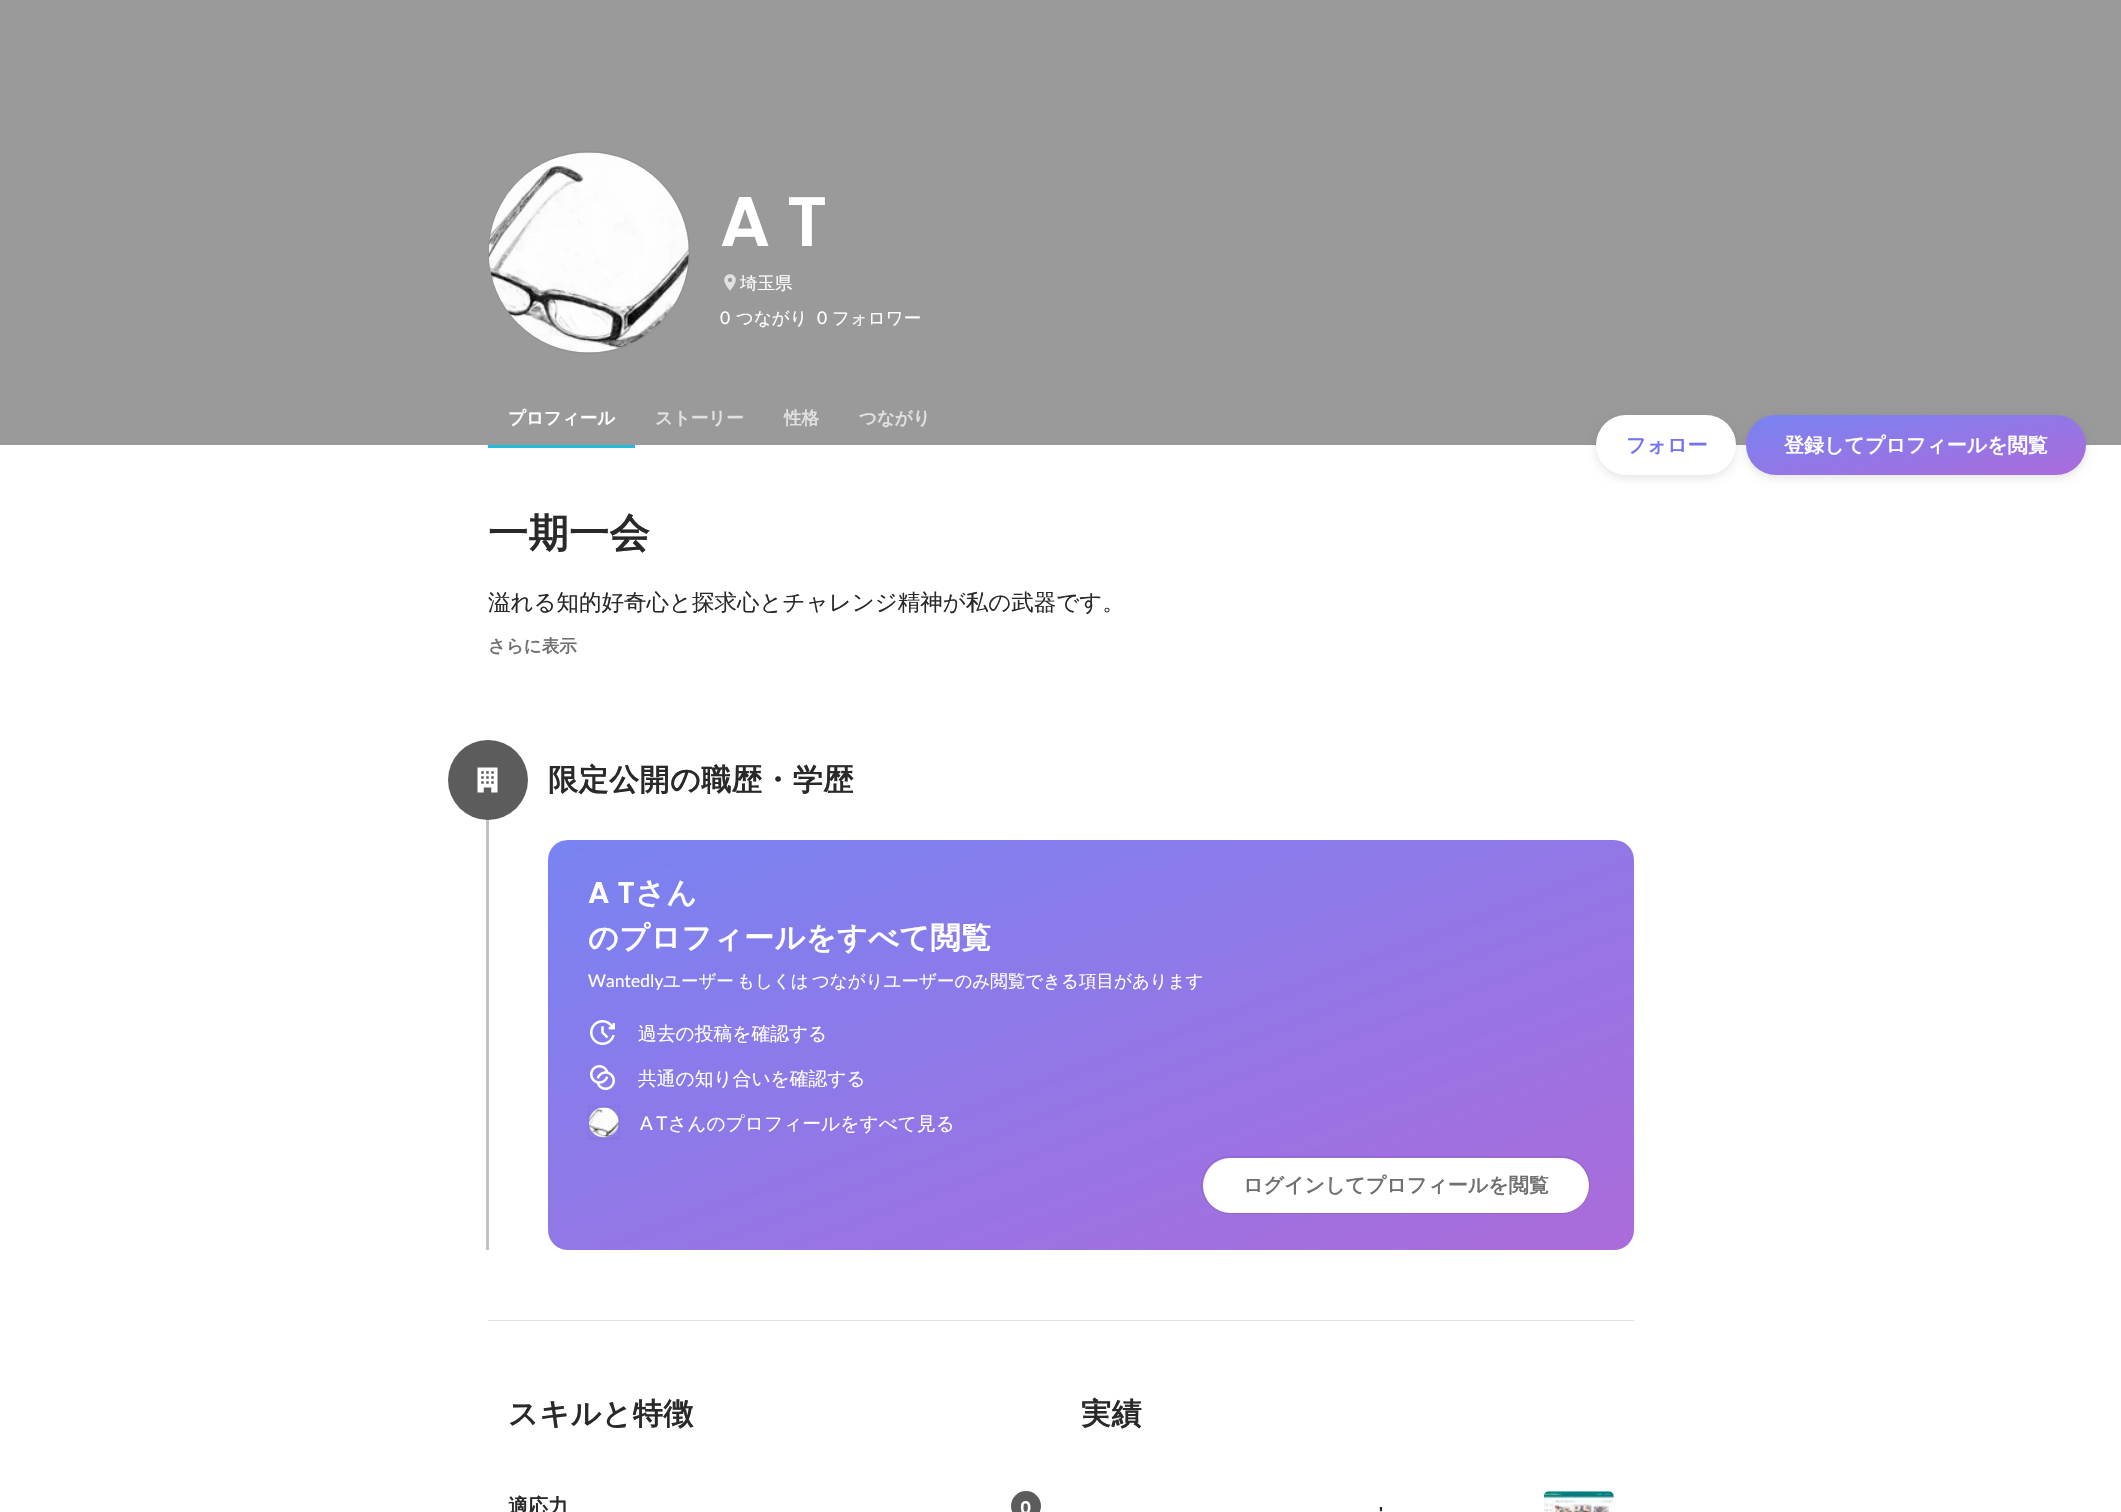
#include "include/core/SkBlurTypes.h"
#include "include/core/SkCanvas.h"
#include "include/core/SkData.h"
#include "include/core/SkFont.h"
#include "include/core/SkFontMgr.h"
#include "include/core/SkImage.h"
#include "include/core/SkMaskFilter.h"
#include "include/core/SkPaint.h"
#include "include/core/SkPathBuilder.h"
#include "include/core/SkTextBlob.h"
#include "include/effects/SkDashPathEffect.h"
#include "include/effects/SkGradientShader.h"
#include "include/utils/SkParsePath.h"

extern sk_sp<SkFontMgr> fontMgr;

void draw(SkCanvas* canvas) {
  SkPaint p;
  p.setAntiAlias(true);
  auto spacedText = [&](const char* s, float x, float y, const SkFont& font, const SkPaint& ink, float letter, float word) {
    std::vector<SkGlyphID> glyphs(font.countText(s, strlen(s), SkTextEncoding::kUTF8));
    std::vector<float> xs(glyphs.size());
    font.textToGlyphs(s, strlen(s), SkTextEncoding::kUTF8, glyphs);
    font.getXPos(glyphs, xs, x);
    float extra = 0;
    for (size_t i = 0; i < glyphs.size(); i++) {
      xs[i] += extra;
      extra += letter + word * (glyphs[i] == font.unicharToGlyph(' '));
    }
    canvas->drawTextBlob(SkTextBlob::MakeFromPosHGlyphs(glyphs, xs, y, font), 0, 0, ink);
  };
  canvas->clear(SK_ColorWHITE);
  p.setColor(SkColorSetRGB(154, 154, 154));
  canvas->drawRect(SkRect::MakeLTRB(0, 0, 2121, 445), p);
  p.setStyle(SkPaint::kStroke_Style);
  p.setStrokeWidth(1);
  p.setColor(SkColorSetRGB(145, 145, 145));
  canvas->drawRoundRect(SkRect::MakeLTRB(488.5f, 151.5f, 689.5f, 353.5f), 100.5f, 100.5f, p);
  canvas->drawImageRect(SkImages::DeferredFromEncodedData(SkData::MakeFromFileName("images/1.png")), SkRect::MakeLTRB(488, 152, 689, 353), SkSamplingOptions());
  canvas->drawImageRect(SkImages::DeferredFromEncodedData(SkData::MakeFromFileName("images/2.png")), SkRect::MakeLTRB(724, 274, 736, 291), SkSamplingOptions());
  p.setStyle(SkPaint::kFill_Style);
  p.setColor(SkColorSetRGB(33, 189, 219));
  canvas->drawRect(SkRect::MakeLTRB(488, 445, 635, 448), p);
  p.setColor(SkColorSetARGB(26, 0, 0, 0));
  p.setMaskFilter(SkMaskFilter::MakeBlur(kNormal_SkBlurStyle, 4));
  canvas->drawRoundRect(SkRect::MakeLTRB(1596, 418, 1736, 478), 30, 30, p);
  p.setMaskFilter(nullptr);
  p.setColor(SK_ColorWHITE);
  canvas->drawRoundRect(SkRect::MakeLTRB(1596, 415, 1736, 475), 30, 30, p);
  p.setColor(SkColorSetARGB(26, 0, 0, 0));
  p.setMaskFilter(SkMaskFilter::MakeBlur(kNormal_SkBlurStyle, 4));
  canvas->drawRoundRect(SkRect::MakeLTRB(1746, 418, 2086, 478), 30, 30, p);
  p.setMaskFilter(nullptr);
  {
    const SkColor colors[] = {SkColorSetRGB(121, 131, 242), SkColorSetRGB(171, 107, 219)};
    const float stops[] = {0, 1};
    const SkPoint ends[] = {{1906, 387}, {1927, 503}};
    p.setShader(SkGradientShader::MakeLinear(ends, colors, stops, 2, SkTileMode::kClamp));
    p.setAlpha(255);
  }
  canvas->drawRoundRect(SkRect::MakeLTRB(1746, 415, 2086, 475), 30, 30, p);
  p.setShader(nullptr);
  p.setColor(SkColorSetRGB(194, 194, 194));
  canvas->drawRect(SkRect::MakeLTRB(486, 819, 489, 1250), p);
  p.setColor(SkColorSetRGB(92, 92, 92));
  canvas->drawCircle(488, 780, 40, p);
  canvas->drawImageRect(SkImages::DeferredFromEncodedData(SkData::MakeFromFileName("images/3.png")), SkRect::MakeLTRB(477, 767, 498, 793), SkSamplingOptions());
  {
    const SkColor colors[] = {SkColorSetRGB(121, 131, 242), SkColorSetRGB(171, 107, 219)};
    const float stops[] = {0, 1};
    const SkPoint ends[] = {{955, 686}, {1226, 1404}};
    p.setShader(SkGradientShader::MakeLinear(ends, colors, stops, 2, SkTileMode::kClamp));
    p.setAlpha(255);
  }
  canvas->drawRoundRect(SkRect::MakeLTRB(548, 840, 1634, 1250), 20, 20, p);
  canvas->drawImageRect(SkImages::DeferredFromEncodedData(SkData::MakeFromFileName("images/4.png")), SkRect::MakeLTRB(590, 1020, 615, 1045), SkSamplingOptions());
  canvas->drawImageRect(SkImages::DeferredFromEncodedData(SkData::MakeFromFileName("images/5.png")), SkRect::MakeLTRB(590, 1065, 615, 1090), SkSamplingOptions());
  p.setStyle(SkPaint::kStroke_Style);
  p.setShader(nullptr);
  p.setColor(SkColorSetARGB(15, 0, 0, 0));
  canvas->drawRect(SkRect::MakeLTRB(588.5f, 1106.5f, 619.5f, 1138.5f), p);
  canvas->drawImageRect(SkImages::DeferredFromEncodedData(SkData::MakeFromFileName("images/6.png")), SkRect::MakeLTRB(588, 1107, 619, 1138), SkSamplingOptions());
  p.setColor(SkColorSetARGB(26, 0, 0, 0));
  canvas->drawRoundRect(SkRect::MakeLTRB(1201.5f, 1156.5f, 1589.5f, 1213.5f), 28.5f, 28.5f, p);
  p.setStyle(SkPaint::kFill_Style);
  p.setColor(SK_ColorWHITE);
  canvas->drawRoundRect(SkRect::MakeLTRB(1203, 1158, 1589, 1213), 27.5f, 27.5f, p);
  p.setColor(SkColorSetRGB(224, 224, 224));
  canvas->drawRect(SkRect::MakeLTRB(488, 1320, 1634, 1321), p);
  p.setColor(SkColorSetRGB(92, 92, 92));
  canvas->drawCircle(1026, 1506, 15, p);
  canvas->drawImageRect(SkImages::DeferredFromEncodedData(SkData::MakeFromFileName("images/7.png")), SkRect::MakeLTRB(1543, 1491, 1614, 1512), SkSamplingOptions());
  SkFont font1(fontMgr->matchFamilyStyle("Poppins", SkFontStyle(600, SkFontStyle::kNormal_Width, SkFontStyle::kUpright_Slant)), 70);
  font1.setSubpixel(true);
  p.setColor(SK_ColorWHITE);
  canvas->drawString("A T", 720, 246, font1, p);
  SkFont font2(fontMgr->matchFamilyStyle("WenQuanYi Zen Hei", SkFontStyle(500, SkFontStyle::kNormal_Width, SkFontStyle::kUpright_Slant)), 17.5f);
  font2.setSubpixel(true);
  canvas->drawString("埼玉県", 740, 289, font2, p);
  SkFont font3(fontMgr->matchFamilyStyle("Lato", SkFontStyle::Normal()), 17.5f);
  font3.setSubpixel(true);
  canvas->drawString("0", 720, 324, font3, p);
  canvas->drawString("つながり", 736, 324, font2, p);
  canvas->drawString("0", 817, 324, font3, p);
  canvas->drawString("フォロワー", 832, 324, font2, p);
  SkFont font4(fontMgr->matchFamilyStyle("WenQuanYi Zen Hei", SkFontStyle::Bold()), 17.5f);
  font4.setSubpixel(true);
  canvas->drawString("プロフィール", 508, 424, font4, p);
  p.setColor(SkColorSetRGB(225, 225, 225));
  canvas->drawString("ストーリー", 655, 424, font4, p);
  canvas->drawString("性格", 784, 424, font4, p);
  canvas->drawString("つながり", 859, 424, font4, p);
  SkFont font5(fontMgr->matchFamilyStyle("WenQuanYi Zen Hei", SkFontStyle::Bold()), 20);
  font5.setSubpixel(true);
  p.setColor(SkColorSetRGB(115, 114, 242));
  canvas->drawString("フォロー", 1626, 452, font5, p);
  p.setColor(SK_ColorWHITE);
  canvas->drawString("登録してプロフィールを閲覧", 1784, 452, font5, p);
  SkFont font6(fontMgr->matchFamilyStyle("WenQuanYi Zen Hei", SkFontStyle::Bold()), 40);
  font6.setSubpixel(true);
  p.setColor(SkColorSetRGB(41, 41, 41));
  spacedText("一期一会", 488, 547, font6, p, 0.5f, 0);
  SkFont font7(fontMgr->matchFamilyStyle("WenQuanYi Zen Hei", SkFontStyle(500, SkFontStyle::kNormal_Width, SkFontStyle::kUpright_Slant)), 22.5f);
  font7.setSubpixel(true);
  canvas->drawString("溢れる知的好奇心と探求心とチャレンジ精神が私の武器です。", 488, 610, font7, p);
  p.setColor(SkColorSetRGB(112, 112, 112));
  canvas->drawString("さらに表示", 488, 652, font4, p);
  SkFont font8(fontMgr->matchFamilyStyle("WenQuanYi Zen Hei", SkFontStyle::Bold()), 30);
  font8.setSubpixel(true);
  p.setColor(SkColorSetRGB(41, 41, 41));
  spacedText("限定公開の職歴・学歴", 548, 790, font8, p, 0.5f, 0);
  SkFont font9(fontMgr->matchFamilyStyle("Poppins", SkFontStyle(600, SkFontStyle::kNormal_Width, SkFontStyle::kUpright_Slant)), 30);
  font9.setSubpixel(true);
  p.setColor(SK_ColorWHITE);
  spacedText("A T", 588, 903, font9, p, 0.5f, 0);
  spacedText("さん", 635, 903, font8, p, 0.5f, 0);
  spacedText("のプロフィールをすべて閲覧", 588, 948, font8, p, 0.5f, 0);
  canvas->drawString("Wantedly", 588, 987, font3, p);
  spacedText("ユーザー もしくは つながりユーザーのみ閲覧できる項目があります", 663, 987, font2, p, 0, -2);
  SkFont font10(fontMgr->matchFamilyStyle("WenQuanYi Zen Hei", SkFontStyle(500, SkFontStyle::kNormal_Width, SkFontStyle::kUpright_Slant)), 18.75f);
  font10.setSubpixel(true);
  canvas->drawString("過去の投稿を確認する", 638, 1040, font10, p);
  canvas->drawString("共通の知り合いを確認する", 638, 1085, font10, p);
  SkFont font11(fontMgr->matchFamilyStyle("Lato", SkFontStyle::Normal()), 18.75f);
  font11.setSubpixel(true);
  canvas->drawString("A T", 640, 1130, font11, p);
  canvas->drawString("さんのプロフィールをすべて見る", 668, 1130, font10, p);
  p.setColor(SkColorSetRGB(112, 112, 112));
  canvas->drawString("ログインしてプロフィールを閲覧", 1243, 1192, font5, p);
  p.setColor(SkColorSetRGB(41, 41, 41));
  spacedText("スキルと特徴", 508, 1424, font8, p, 0.5f, 0);
  canvas->drawString("適応力", 508, 1513, font5, p);
  SkFont font12(fontMgr->matchFamilyStyle("Poppins", SkFontStyle(600, SkFontStyle::kNormal_Width, SkFontStyle::kUpright_Slant)), 17.5f);
  font12.setSubpixel(true);
  p.setColor(SK_ColorWHITE);
  canvas->drawString("0", 1020, 1514, font12, p);
  p.setColor(SkColorSetRGB(41, 41, 41));
  spacedText("実績", 1081, 1424, font8, p, 0.5f, 0);
  SkFont font13(fontMgr->matchFamilyStyle("Poppins", SkFontStyle(600, SkFontStyle::kNormal_Width, SkFontStyle::kUpright_Slant)), 20);
  font13.setSubpixel(true);
  canvas->drawString("'", 1379, 1523, font13, p);
}
